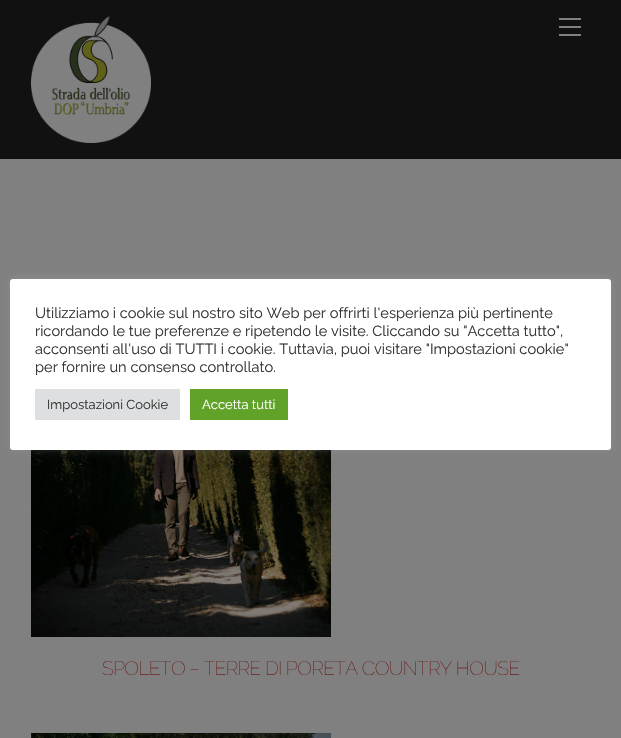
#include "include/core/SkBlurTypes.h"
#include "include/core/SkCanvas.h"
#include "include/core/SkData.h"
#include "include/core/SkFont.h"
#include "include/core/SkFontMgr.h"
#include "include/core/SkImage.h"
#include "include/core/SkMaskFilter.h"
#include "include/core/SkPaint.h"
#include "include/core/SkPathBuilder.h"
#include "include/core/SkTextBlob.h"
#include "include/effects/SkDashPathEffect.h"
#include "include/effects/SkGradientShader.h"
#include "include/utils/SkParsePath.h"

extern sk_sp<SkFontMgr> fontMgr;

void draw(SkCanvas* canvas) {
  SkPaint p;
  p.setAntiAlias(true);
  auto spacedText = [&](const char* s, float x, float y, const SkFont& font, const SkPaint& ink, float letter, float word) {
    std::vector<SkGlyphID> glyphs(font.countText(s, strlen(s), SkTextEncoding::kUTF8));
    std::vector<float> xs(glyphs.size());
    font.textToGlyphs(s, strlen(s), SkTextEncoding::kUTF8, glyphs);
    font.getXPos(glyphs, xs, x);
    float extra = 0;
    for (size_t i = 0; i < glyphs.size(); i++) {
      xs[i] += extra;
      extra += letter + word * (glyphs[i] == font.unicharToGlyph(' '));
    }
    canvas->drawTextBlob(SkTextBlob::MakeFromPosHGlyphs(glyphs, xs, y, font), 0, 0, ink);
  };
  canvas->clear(SkColorSetRGB(128, 128, 128));
  canvas->drawImageRect(SkImages::DeferredFromEncodedData(SkData::MakeFromFileName("images/2.png")), SkRect::MakeLTRB(31, 450, 331, 637), SkSamplingOptions());
  p.setColor(SkColorSetARGB(77, 172, 171, 171));
  p.setMaskFilter(SkMaskFilter::MakeBlur(kNormal_SkBlurStyle, 5));
  canvas->drawRoundRect(SkRect::MakeLTRB(10, 278, 611, 449), 3, 3, p);
  p.setMaskFilter(nullptr);
  p.setColor(SK_ColorWHITE);
  canvas->drawRoundRect(SkRect::MakeLTRB(10, 279, 611, 450), 3, 3, p);
  p.setColor(SkColorSetRGB(222, 223, 224));
  canvas->drawRect(SkRect::MakeLTRB(35, 389, 180, 420), p);
  p.setColor(SkColorSetRGB(97, 162, 41));
  canvas->drawRect(SkRect::MakeLTRB(190, 389, 288, 420), p);
  p.setColor(SkColorSetRGB(17, 17, 17));
  canvas->drawRect(SkRect::MakeLTRB(0, 0, 621, 159), p);
  canvas->drawImageRect(SkImages::DeferredFromEncodedData(SkData::MakeFromFileName("images/1.png")), SkRect::MakeLTRB(31, 15, 151, 143), SkSamplingOptions());
  p.setColor(SkColorSetRGB(128, 128, 128));
  canvas->drawRect(SkRect::MakeLTRB(559, 34, 581, 36), p);
  canvas->drawRect(SkRect::MakeLTRB(559, 18, 581, 20), p);
  canvas->drawRect(SkRect::MakeLTRB(559, 26, 581, 28), p);
  canvas->drawImageRect(SkImages::DeferredFromEncodedData(SkData::MakeFromFileName("images/3.png")), SkRect::MakeLTRB(31, 733, 331, 738), SkSamplingOptions());
  SkFont font1(fontMgr->matchFamilyStyle("Raleway", SkFontStyle::Normal()), 14.65f);
  font1.setSubpixel(true);
  p.setColor(SkColorSetRGB(51, 51, 51));
  canvas->drawString("Utilizziamo i cookie sul nostro sito Web per offrirti l'esperienza più pertinente", 35, 318, font1, p);
  canvas->drawString("ricordando le tue preferenze e ripetendo le visite. Cliccando su \"Accetta tutto\",", 35, 336, font1, p);
  canvas->drawString("acconsenti all'uso di TUTTI i cookie. Tuttavia, puoi visitare \"Impostazioni cookie\"", 35, 354, font1, p);
  canvas->drawString("per fornire un consenso controllato.", 35, 372, font1, p);
  SkFont font2(fontMgr->matchFamilyStyle("Raleway", SkFontStyle::Normal()), 13);
  font2.setSubpixel(true);
  canvas->drawString("Impostazioni Cookie", 47, 409, font2, p);
  p.setColor(SK_ColorWHITE);
  canvas->drawString("Accetta tutti", 202, 409, font2, p);
  SkFont font3(fontMgr->matchFamilyStyle("Raleway", SkFontStyle(100, SkFontStyle::kNormal_Width, SkFontStyle::kUpright_Slant)), 19.4f);
  font3.setSubpixel(true);
  p.setColor(SkColorSetRGB(100, 8, 8));
  spacedText("SPOLETO – TERRE DI PORETA COUNTRY HOUSE", 102, 675, font3, p, -0.7f, 0);
}
